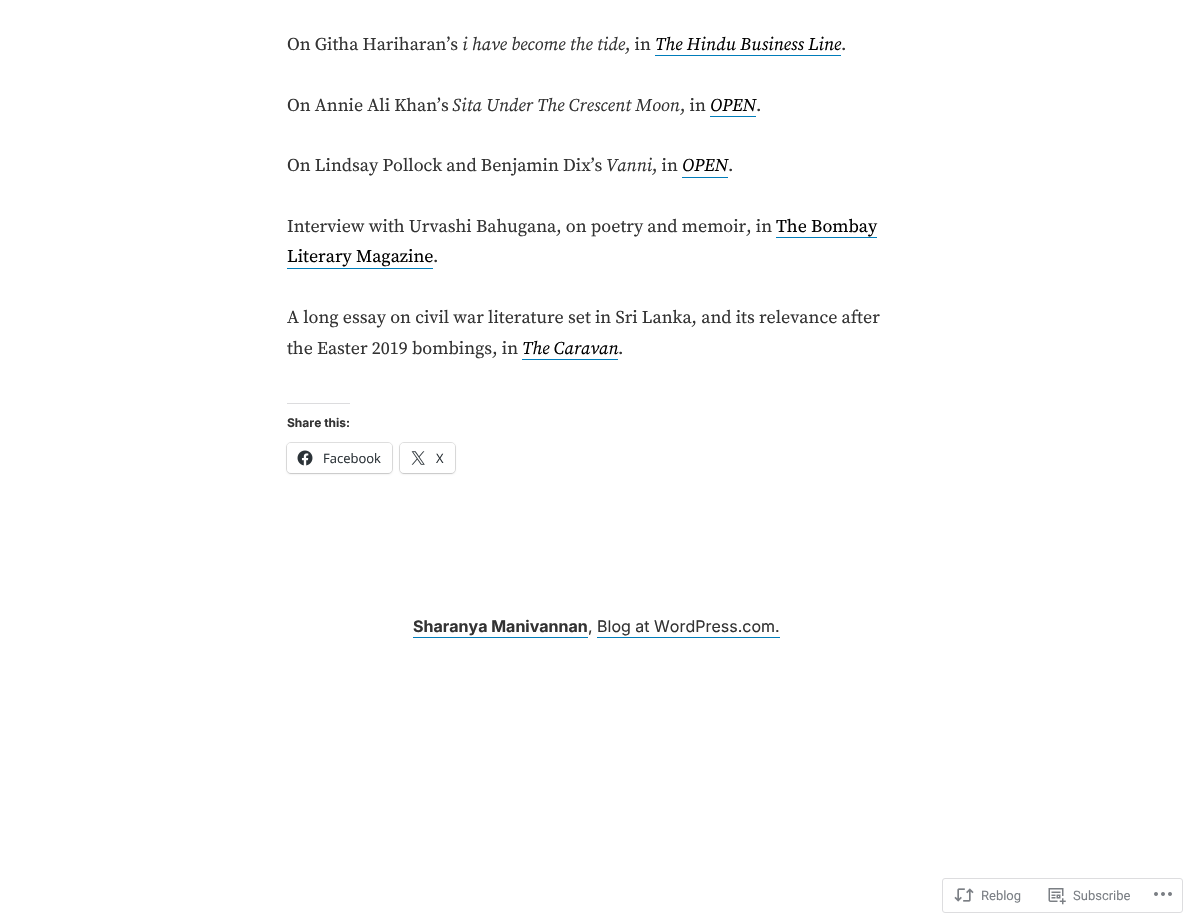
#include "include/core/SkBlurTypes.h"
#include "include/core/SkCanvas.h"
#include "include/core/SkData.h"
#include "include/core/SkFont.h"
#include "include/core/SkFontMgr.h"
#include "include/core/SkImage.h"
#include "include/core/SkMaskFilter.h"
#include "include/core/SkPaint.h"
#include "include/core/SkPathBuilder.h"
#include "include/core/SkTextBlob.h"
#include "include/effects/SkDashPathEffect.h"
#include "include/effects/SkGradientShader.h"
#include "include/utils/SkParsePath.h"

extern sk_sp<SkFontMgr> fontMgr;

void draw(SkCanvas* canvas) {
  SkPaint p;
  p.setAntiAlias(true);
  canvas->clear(SK_ColorWHITE);
  p.setColor(SkColorSetRGB(0, 124, 186));
  canvas->drawRect(SkRect::MakeLTRB(655, 55, 841, 56), p);
  canvas->drawRect(SkRect::MakeLTRB(710, 116, 756, 117), p);
  canvas->drawRect(SkRect::MakeLTRB(682, 177, 728, 178), p);
  canvas->drawRect(SkRect::MakeLTRB(776, 237, 877, 238), p);
  canvas->drawRect(SkRect::MakeLTRB(287, 268, 433, 269), p);
  canvas->drawRect(SkRect::MakeLTRB(522, 359, 618, 360), p);
  p.setColor(SkColorSetRGB(220, 220, 222));
  canvas->drawRect(SkRect::MakeLTRB(287, 403, 350, 404), p);
  p.setStyle(SkPaint::kStroke_Style);
  p.setStrokeWidth(1);
  p.setColor(SkColorSetRGB(224, 224, 224));
  canvas->drawRoundRect(SkRect::MakeLTRB(286.5f, 442.5f, 392.5f, 473.5f), 4.5f, 4.5f, p);
  p.setStyle(SkPaint::kFill_Style);
  p.setColor(SkColorSetARGB(31, 0, 0, 0));
  p.setMaskFilter(SkMaskFilter::MakeBlur(kNormal_SkBlurStyle, 1));
  canvas->drawRoundRect(SkRect::MakeLTRB(287, 444, 392, 474), 4, 4, p);
  p.setMaskFilter(nullptr);
  p.setColor(SK_ColorWHITE);
  canvas->drawRoundRect(SkRect::MakeLTRB(287, 443, 392, 473), 4, 4, p);
  canvas->drawImageRect(SkImages::DeferredFromEncodedData(SkData::MakeFromFileName("images/1.png")), SkRect::MakeLTRB(297, 450, 313, 466), SkSamplingOptions());
  p.setStyle(SkPaint::kStroke_Style);
  p.setColor(SkColorSetRGB(224, 224, 224));
  canvas->drawRoundRect(SkRect::MakeLTRB(399.5f, 442.5f, 455.5f, 473.5f), 4.5f, 4.5f, p);
  p.setStyle(SkPaint::kFill_Style);
  p.setColor(SkColorSetARGB(31, 0, 0, 0));
  p.setMaskFilter(SkMaskFilter::MakeBlur(kNormal_SkBlurStyle, 1));
  canvas->drawRoundRect(SkRect::MakeLTRB(400, 444, 455, 474), 4, 4, p);
  p.setMaskFilter(nullptr);
  p.setColor(SK_ColorWHITE);
  canvas->drawRoundRect(SkRect::MakeLTRB(400, 443, 455, 473), 4, 4, p);
  canvas->drawImageRect(SkImages::DeferredFromEncodedData(SkData::MakeFromFileName("images/2.png")), SkRect::MakeLTRB(411, 451, 425, 465), SkSamplingOptions());
  p.setColor(SkColorSetRGB(0, 124, 186));
  canvas->drawRect(SkRect::MakeLTRB(413, 637, 588, 638), p);
  canvas->drawRect(SkRect::MakeLTRB(597, 637, 780, 638), p);
  p.setStyle(SkPaint::kStroke_Style);
  p.setColor(SkColorSetRGB(221, 221, 223));
  canvas->drawRoundRect(SkRect::MakeLTRB(942.5f, 878.5f, 1182.5f, 912.5f), 2.5f, 2.5f, p);
  canvas->drawImageRect(SkImages::DeferredFromEncodedData(SkData::MakeFromFileName("images/3.png")), SkRect::MakeLTRB(954, 888, 974, 902), SkSamplingOptions());
  canvas->drawImageRect(SkImages::DeferredFromEncodedData(SkData::MakeFromFileName("images/4.png")), SkRect::MakeLTRB(1048, 888, 1066, 905), SkSamplingOptions());
  canvas->drawImageRect(SkImages::DeferredFromEncodedData(SkData::MakeFromFileName("images/5.png")), SkRect::MakeLTRB(1154, 892, 1172, 896), SkSamplingOptions());
  SkFont font1(fontMgr->matchFamilyStyle("Source Serif Pro", SkFontStyle::Normal()), 18);
  font1.setSubpixel(true);
  p.setStyle(SkPaint::kFill_Style);
  p.setColor(SkColorSetRGB(51, 51, 51));
  canvas->drawString("On Githa Hariharan’s", 287, 50, font1, p);
  SkFont font2(fontMgr->matchFamilyStyle("Source Serif Pro", SkFontStyle::Italic()), 18);
  font2.setSubpixel(true);
  canvas->drawString("i have become the tide", 462, 50, font2, p);
  canvas->drawString(", in", 625, 50, font1, p);
  p.setColor(SK_ColorBLACK);
  canvas->drawString("The Hindu Business Line", 655, 50, font2, p);
  p.setColor(SkColorSetRGB(51, 51, 51));
  canvas->drawString(".", 841, 50, font1, p);
  canvas->drawString("On Annie Ali Khan’s", 287, 111, font1, p);
  canvas->drawString("Sita Under The Crescent Moon", 452, 111, font2, p);
  canvas->drawString(", in", 680, 111, font1, p);
  p.setColor(SK_ColorBLACK);
  canvas->drawString("OPEN", 710, 111, font2, p);
  p.setColor(SkColorSetRGB(51, 51, 51));
  canvas->drawString(".", 756, 111, font1, p);
  canvas->drawString("On Lindsay Pollock and Benjamin Dix’s", 287, 171, font1, p);
  canvas->drawString("Vanni", 606, 171, font2, p);
  canvas->drawString(", in", 652, 171, font1, p);
  p.setColor(SK_ColorBLACK);
  canvas->drawString("OPEN", 682, 171, font2, p);
  p.setColor(SkColorSetRGB(51, 51, 51));
  canvas->drawString(".", 728, 171, font1, p);
  canvas->drawString("Interview with Urvashi Bahugana, on poetry and memoir, in", 287, 232, font1, p);
  p.setColor(SK_ColorBLACK);
  canvas->drawString("The Bombay", 776, 232, font1, p);
  canvas->drawString("Literary Magazine", 287, 262, font1, p);
  p.setColor(SkColorSetRGB(51, 51, 51));
  canvas->drawString(".", 433, 262, font1, p);
  canvas->drawString("A long essay on civil war literature set in Sri Lanka, and its relevance after", 287, 323, font1, p);
  canvas->drawString("the Easter 2019 bombings, in", 287, 354, font1, p);
  p.setColor(SK_ColorBLACK);
  canvas->drawString("The Caravan", 522, 354, font2, p);
  p.setColor(SkColorSetRGB(51, 51, 51));
  canvas->drawString(".", 618, 354, font1, p);
  SkFont font3(fontMgr->matchFamilyStyle("Inter", SkFontStyle::Bold()), 12);
  font3.setSubpixel(true);
  canvas->drawString("Share this:", 287, 427, font3, p);
  SkFont font4(fontMgr->matchFamilyStyle("Open Sans", SkFontStyle::Normal()), 13);
  font4.setSubpixel(true);
  p.setColor(SkColorSetRGB(44, 51, 56));
  canvas->drawString("Facebook", 323, 463, font4, p);
  canvas->drawString("X", 436, 463, font4, p);
  SkFont font5(fontMgr->matchFamilyStyle("Inter", SkFontStyle::Bold()), 16);
  font5.setSubpixel(true);
  p.setColor(SkColorSetRGB(51, 51, 51));
  canvas->drawString("Sharanya Manivannan", 413, 632, font5, p);
  SkFont font6(fontMgr->matchFamilyStyle("Inter", SkFontStyle::Normal()), 16);
  font6.setSubpixel(true);
  canvas->drawString(", Blog at WordPress.com.", 588, 632, font6, p);
  SkFont font7(fontMgr->matchFamilyStyle("Roboto", SkFontStyle::Normal()), 13);
  font7.setSubpixel(true);
  p.setColor(SkColorSetRGB(123, 127, 133));
  canvas->drawString("Reblog", 981, 900, font7, p);
  canvas->drawString("Subscribe", 1073, 900, font7, p);
}
